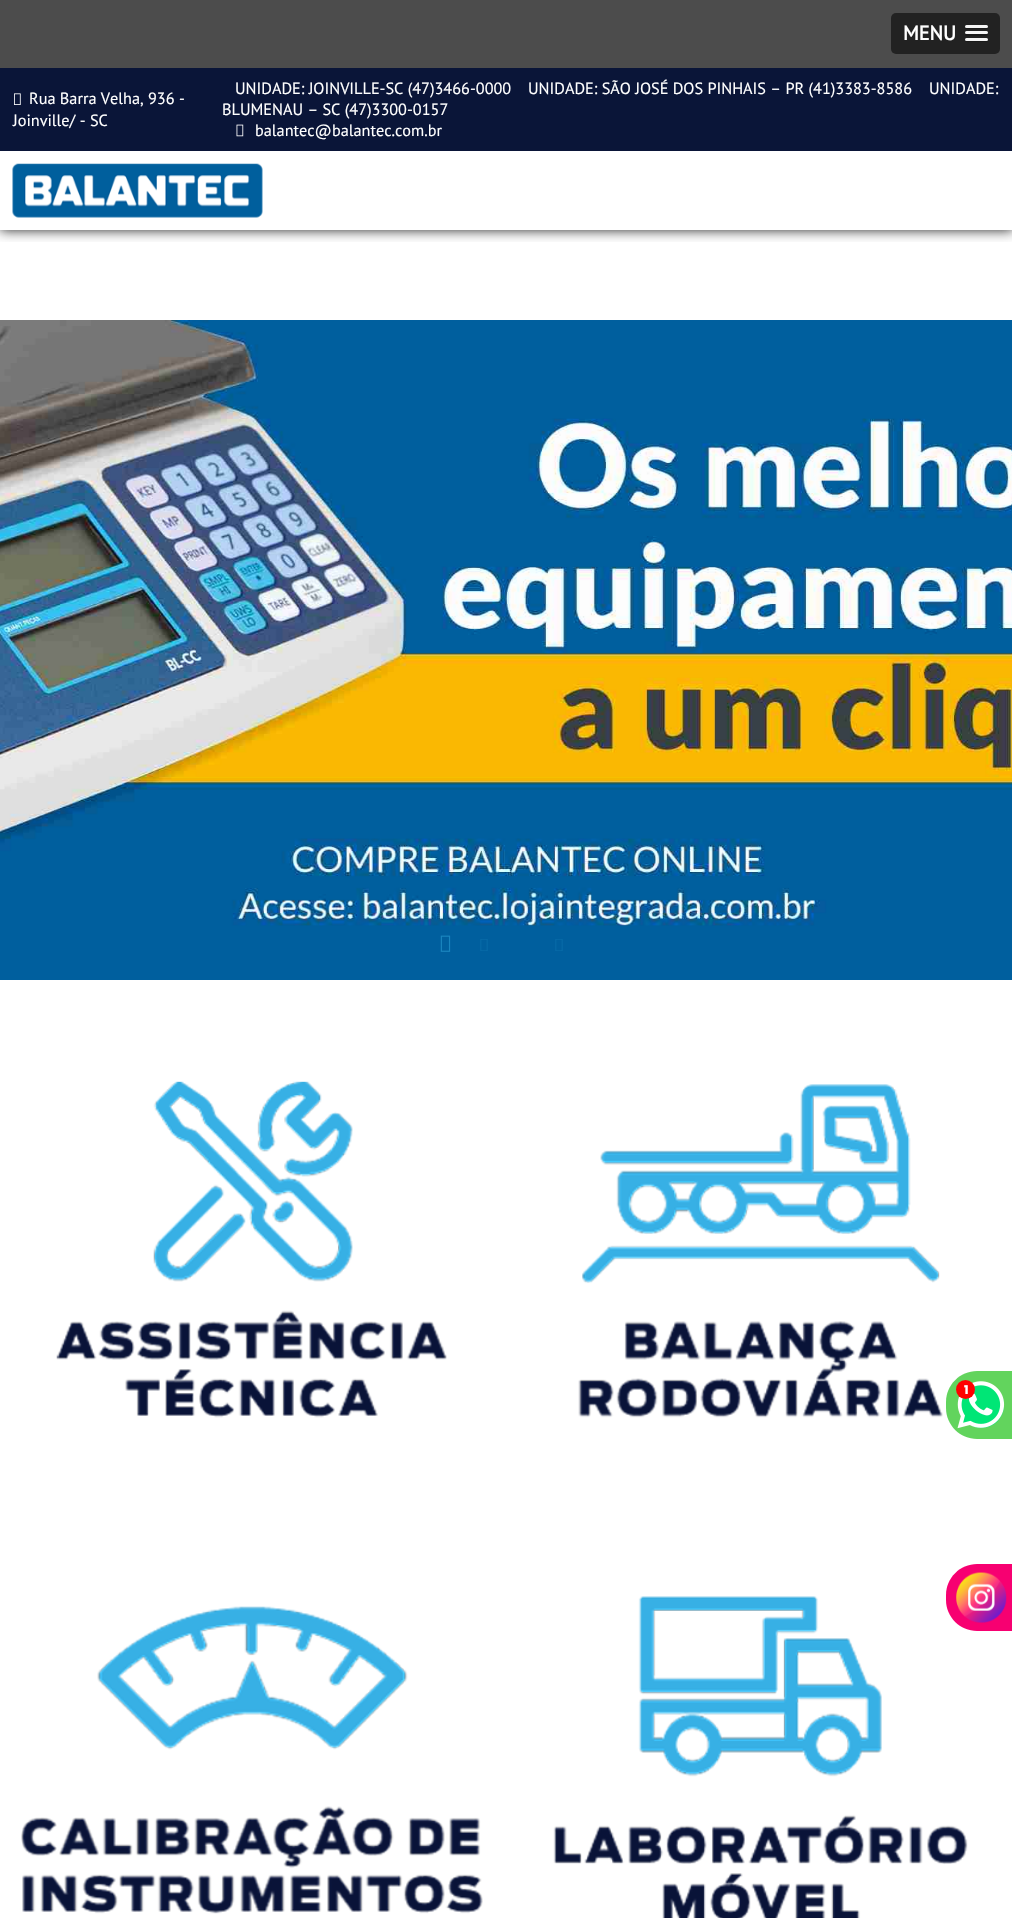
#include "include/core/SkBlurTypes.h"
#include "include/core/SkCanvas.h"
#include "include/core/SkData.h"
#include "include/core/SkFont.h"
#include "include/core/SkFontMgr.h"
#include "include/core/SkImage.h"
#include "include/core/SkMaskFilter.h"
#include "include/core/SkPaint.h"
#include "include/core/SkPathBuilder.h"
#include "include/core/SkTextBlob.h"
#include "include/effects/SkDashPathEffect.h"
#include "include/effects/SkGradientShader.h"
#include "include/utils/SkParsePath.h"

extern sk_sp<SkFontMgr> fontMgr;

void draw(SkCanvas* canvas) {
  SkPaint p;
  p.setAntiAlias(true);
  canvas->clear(SK_ColorWHITE);
  canvas->save();
  canvas->clipRect(SkRect::MakeLTRB(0, 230, 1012, 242));
  p.setColor(SkColorSetRGB(34, 34, 34));
  p.setMaskFilter(SkMaskFilter::MakeBlur(kNormal_SkBlurStyle, 6));
  canvas->drawRect(SkRect::MakeLTRB(0, 68, 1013, 230), p);
  p.setMaskFilter(nullptr);
  canvas->restore();
  p.setColor(SkColorSetRGB(76, 76, 76));
  canvas->drawRect(SkRect::MakeLTRB(0, 0, 1012, 68), p);
  p.setColor(SkColorSetRGB(34, 34, 34));
  canvas->drawRoundRect(SkRect::MakeLTRB(891, 13, 1000, 54), 5, 5, p);
  p.setColor(SkColorSetRGB(26, 26, 26));
  canvas->drawPath(SkPathBuilder().moveTo(965, 27).cubicTo(964, 29.5f, 969, 29, 970, 29).lineTo(983, 29).cubicTo(984, 29, 987.5f, 30, 988, 28).cubicTo(988, 27.5f, 988, 26.5f, 987.5f, 26.5f).cubicTo(987.5f, 27, 987, 27.5f, 986, 27.5f).lineTo(966, 27.5f).cubicTo(966, 27.5f, 965.5f, 27, 965, 27).close().detach(), p);
  p.setColor(SkColorSetRGB(245, 245, 245));
  canvas->drawRoundRect(SkRect::MakeLTRB(965, 25, 988, 28), 1.5f, 1.5f, p);
  p.setColor(SkColorSetRGB(26, 26, 26));
  canvas->drawPath(SkPathBuilder().moveTo(965.5f, 33.5f).lineTo(965, 35).cubicTo(965.5f, 37, 969, 36, 970, 36).lineTo(973, 36).cubicTo(975, 36, 986.5f, 36.5f, 987.5f, 35.5f).cubicTo(988, 35, 988, 34, 987.5f, 33).lineTo(986.5f, 33.5f).cubicTo(984.5f, 34, 966, 34, 965.5f, 33.5f).close().detach(), p);
  p.setColor(SkColorSetRGB(245, 245, 245));
  canvas->drawRoundRect(SkRect::MakeLTRB(965, 31, 988, 34), 1.5f, 1.5f, p);
  p.setColor(SkColorSetRGB(26, 26, 26));
  canvas->drawPath(SkPathBuilder().moveTo(965.5f, 39.5f).lineTo(965, 41).cubicTo(965.5f, 43, 969, 42, 970, 42).lineTo(983, 42).cubicTo(984.5f, 42, 988, 43, 988, 40.5f).lineTo(987.5f, 39.5f).lineTo(986.5f, 40).cubicTo(984.5f, 40.5f, 966, 40.5f, 965.5f, 39.5f).close().detach(), p);
  p.setColor(SkColorSetRGB(245, 245, 245));
  canvas->drawRoundRect(SkRect::MakeLTRB(965, 38, 988, 41), 1.5f, 1.5f, p);
  p.setColor(SkColorSetRGB(10, 21, 56));
  canvas->drawRect(SkRect::MakeLTRB(0, 68, 1012, 151), p);
  canvas->drawImageRect(SkImages::DeferredFromEncodedData(SkData::MakeFromFileName("images/1.png")), SkRect::MakeLTRB(14, 93, 21, 105), SkSamplingOptions());
  canvas->drawImageRect(SkImages::DeferredFromEncodedData(SkData::MakeFromFileName("images/2.png")), SkRect::MakeLTRB(236, 124, 244, 137), SkSamplingOptions());
  canvas->drawImageRect(SkImages::DeferredFromEncodedData(SkData::MakeFromFileName("images/3.png")), SkRect::MakeLTRB(12, 163, 263, 218), SkSamplingOptions());
  canvas->drawImageRect(SkImages::DeferredFromEncodedData(SkData::MakeFromFileName("images/4.png")), SkRect::MakeLTRB(0, 320, 1012, 980), SkSamplingOptions());
  canvas->drawImageRect(SkImages::DeferredFromEncodedData(SkData::MakeFromFileName("images/5.png")), SkRect::MakeLTRB(440, 935, 451, 952), SkSamplingOptions());
  canvas->drawImageRect(SkImages::DeferredFromEncodedData(SkData::MakeFromFileName("images/6.png")), SkRect::MakeLTRB(480, 939, 488, 951), SkSamplingOptions());
  canvas->drawImageRect(SkImages::DeferredFromEncodedData(SkData::MakeFromFileName("images/6.png")), SkRect::MakeLTRB(555, 939, 563, 951), SkSamplingOptions());
  canvas->drawImageRect(SkImages::DeferredFromEncodedData(SkData::MakeFromFileName("images/7.png")), SkRect::MakeLTRB(56, 1081, 447, 1418), SkSamplingOptions());
  canvas->drawImageRect(SkImages::DeferredFromEncodedData(SkData::MakeFromFileName("images/8.png")), SkRect::MakeLTRB(578, 1084, 943, 1418), SkSamplingOptions());
  canvas->drawImageRect(SkImages::DeferredFromEncodedData(SkData::MakeFromFileName("images/9.png")), SkRect::MakeLTRB(21, 1606, 483, 1914), SkSamplingOptions());
  canvas->drawImageRect(SkImages::DeferredFromEncodedData(SkData::MakeFromFileName("images/10.png")), SkRect::MakeLTRB(553, 1596, 968, 1918), SkSamplingOptions());
  p.setColor(SkColorSetRGB(98, 212, 93));
  canvas->drawPath(SkPathBuilder().moveTo(977, 1371).lineTo(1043, 1371).lineTo(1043, 1439).lineTo(977, 1439).cubicTo(960, 1439, 946, 1425, 946, 1408).lineTo(946, 1402).cubicTo(946, 1385, 960, 1371, 977, 1371).close().detach(), p);
  p.setColor(SkColorSetRGB(0, 230, 118));
  canvas->drawCircle(981.5f, 1405.5f, 22.5f, p);
  canvas->drawImageRect(SkImages::DeferredFromEncodedData(SkData::MakeFromFileName("images/11.png")), SkRect::MakeLTRB(957, 1381, 1005, 1429), SkSamplingOptions());
  p.setColor(SkColorSetRGB(255, 0, 0));
  canvas->drawCircle(965.5f, 1389.5f, 9.5f, p);
  p.setColor(SkColorSetRGB(247, 0, 113));
  canvas->drawPath(SkPathBuilder().moveTo(977, 1564).lineTo(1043, 1564).lineTo(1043, 1631).lineTo(977, 1631).cubicTo(960, 1631, 946, 1617, 946, 1600).lineTo(946, 1595).cubicTo(946, 1578, 960, 1564, 977, 1564).close().detach(), p);
  canvas->drawImageRect(SkImages::DeferredFromEncodedData(SkData::MakeFromFileName("images/12.png")), SkRect::MakeLTRB(956, 1572, 1007, 1623), SkSamplingOptions());
  SkFont font1(fontMgr->matchFamilyStyle("PT Sans", SkFontStyle::Bold()), 20);
  font1.setSubpixel(true);
  p.setColor(SK_ColorWHITE);
  canvas->drawString("MENU", 903, 40, font1, p);
  SkFont font2(fontMgr->matchFamilyStyle("PT Sans", SkFontStyle::Normal()), 16.25f);
  font2.setSubpixel(true);
  canvas->drawString("Rua Barra Velha, 936 -", 29, 104, font2, p);
  canvas->drawString("Joinville/ - SC", 13, 126, font2, p);
  canvas->drawString("UNIDADE: JOINVILLE-SC (47)3466-0000", 235, 94, font2, p);
  canvas->drawString("UNIDADE: SÃO JOSÉ DOS PINHAIS – PR (41)3383-8586", 528, 94, font2, p);
  canvas->drawString("UNIDADE:", 929, 94, font2, p);
  canvas->drawString("BLUMENAU – SC (47)3300-0157", 222, 115, font2, p);
  canvas->drawString("balantec@balantec.com.br", 255, 136, font2, p);
  SkFont font3(fontMgr->matchFamilyStyle("Poppins", SkFontStyle::Bold()), 12);
  font3.setSubpixel(true);
  canvas->drawString("1", 964, 1394, font3, p);
}
